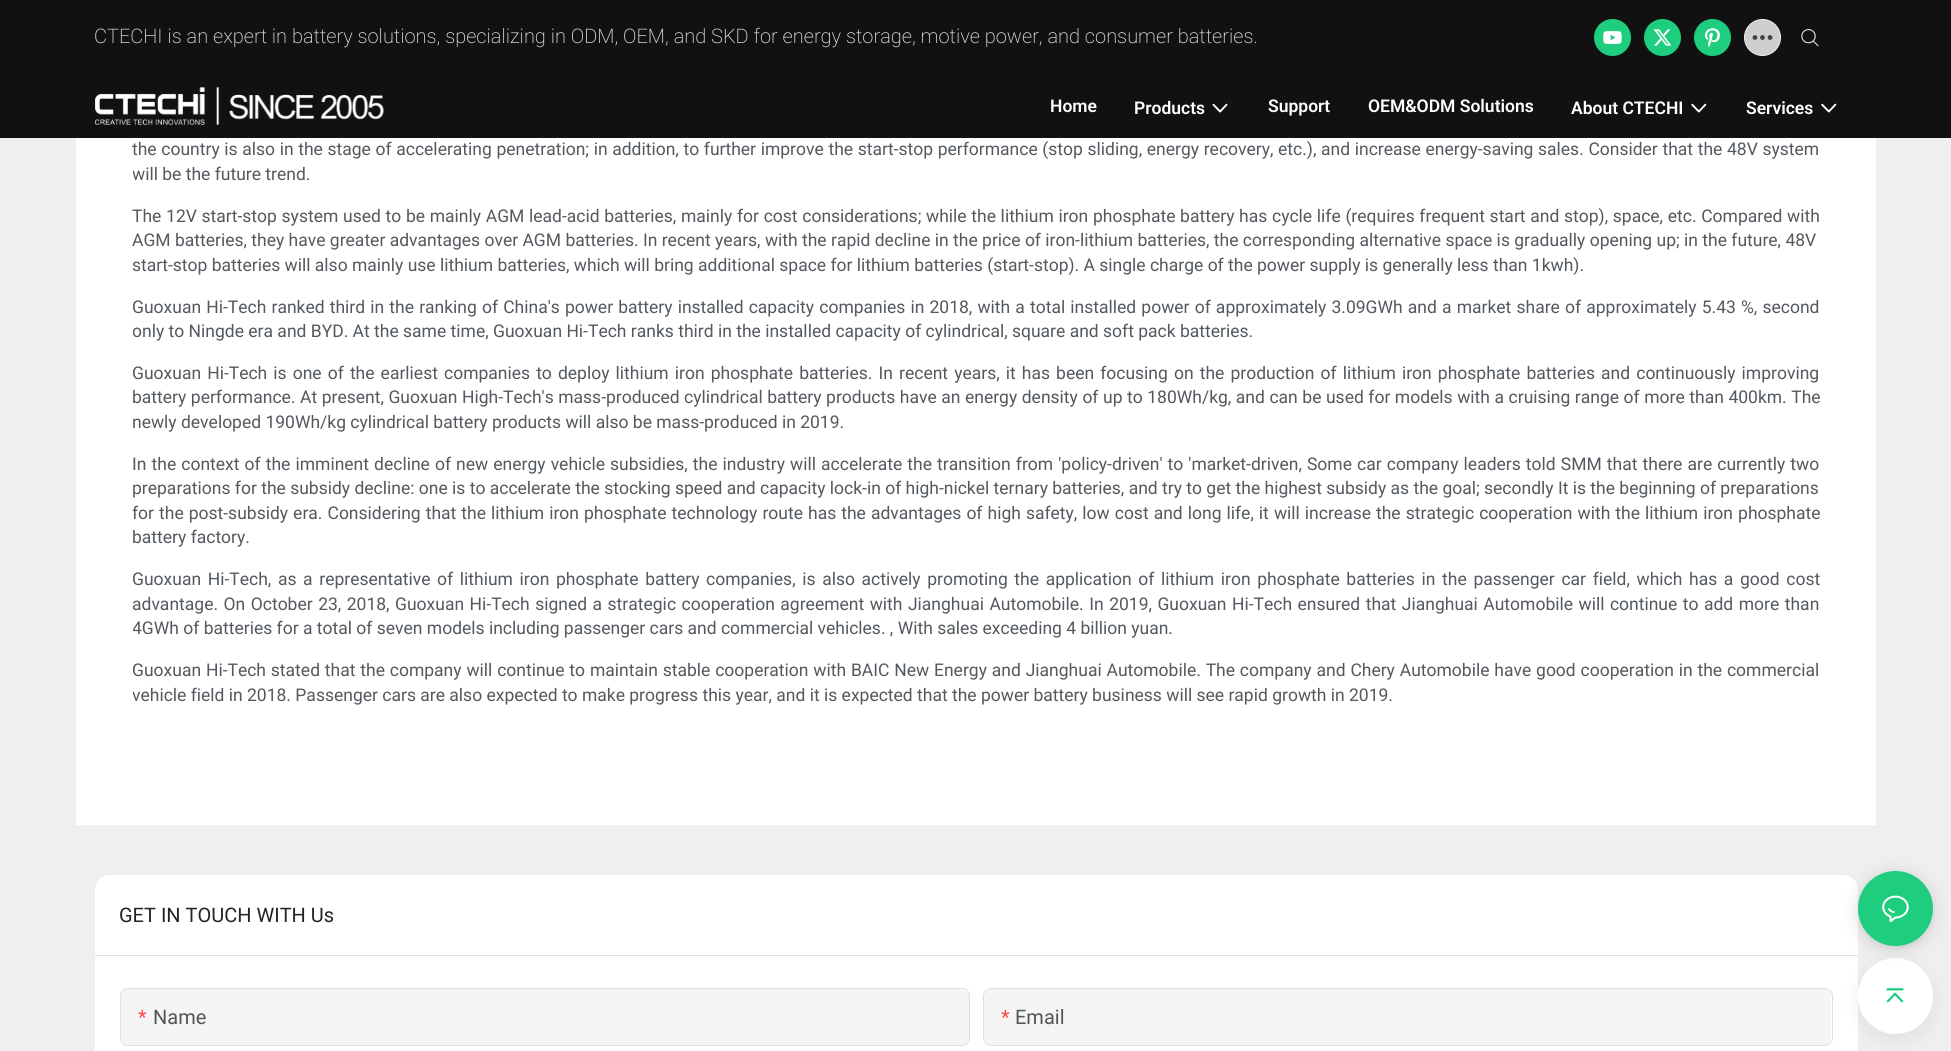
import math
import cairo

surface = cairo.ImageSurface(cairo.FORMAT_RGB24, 1951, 1051)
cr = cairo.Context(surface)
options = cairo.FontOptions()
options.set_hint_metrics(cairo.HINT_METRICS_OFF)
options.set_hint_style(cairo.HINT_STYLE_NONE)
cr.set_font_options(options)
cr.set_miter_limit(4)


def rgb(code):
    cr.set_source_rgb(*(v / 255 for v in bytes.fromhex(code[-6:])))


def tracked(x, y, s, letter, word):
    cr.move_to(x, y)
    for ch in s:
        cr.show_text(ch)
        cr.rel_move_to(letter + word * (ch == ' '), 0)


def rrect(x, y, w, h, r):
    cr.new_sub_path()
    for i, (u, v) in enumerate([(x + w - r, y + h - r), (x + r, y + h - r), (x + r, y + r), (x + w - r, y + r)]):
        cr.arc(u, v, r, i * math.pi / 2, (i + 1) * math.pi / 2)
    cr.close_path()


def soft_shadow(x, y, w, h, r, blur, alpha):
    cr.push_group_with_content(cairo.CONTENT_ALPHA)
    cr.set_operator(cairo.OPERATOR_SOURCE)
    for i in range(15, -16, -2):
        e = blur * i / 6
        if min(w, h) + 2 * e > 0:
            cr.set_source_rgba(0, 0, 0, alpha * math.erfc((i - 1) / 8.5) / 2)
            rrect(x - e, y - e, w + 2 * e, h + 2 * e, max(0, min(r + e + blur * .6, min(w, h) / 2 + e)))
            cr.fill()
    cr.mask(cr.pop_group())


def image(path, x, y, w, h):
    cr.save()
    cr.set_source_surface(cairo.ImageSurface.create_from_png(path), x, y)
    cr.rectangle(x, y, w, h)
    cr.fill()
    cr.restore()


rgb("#efefef")
cr.paint()
rgb("#111111")
cr.rectangle(0, 0, 1951, 138)
cr.fill()
rgb("#1ecd7e")
cr.arc(1612.5, 37.5, 18.5, 0, 2 * math.pi)
cr.fill()
image("img/1.png", 1603, 31, 19, 13)
cr.arc(1662.5, 37.5, 18.5, 0, 2 * math.pi)
cr.fill()
image("img/2.png", 1653, 29, 19, 17)
cr.arc(1712.5, 37.5, 18.5, 0, 2 * math.pi)
cr.fill()
image("img/3.png", 1705, 28, 15, 19)
rgb("#cfcfcf")
cr.arc(1762.5, 37.5, 18, 0, 2 * math.pi)
cr.fill_preserve()
rgb("#ebebeb")
cr.set_line_width(1)
cr.stroke()
image("img/4.png", 1752, 35, 21, 5)
image("img/5.png", 1801, 29, 18, 18)
image("img/6.png", 95, 87, 290, 38)
image("img/7.png", 1212, 103, 16, 10)
image("img/8.png", 1691, 103, 16, 10)
image("img/8.png", 1821, 103, 16, 10)
rgb("#ffffff")
cr.rectangle(76, 138, 1800, 687)
cr.fill()
rrect(95, 875, 1763, 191, 15)
cr.fill()
rgb("#dfdfe1")
cr.rectangle(95, 955, 1763, 1)
cr.fill()
rgb("#f5f5f5")
rrect(121, 989, 848, 56, 6)
cr.fill()
rrect(120.5, 988.5, 849, 57, 7.5)
rgb("#dfdfe1")
cr.stroke()
rgb("#f5f5f5")
rrect(984, 989, 847, 56, 6)
cr.fill()
rrect(983.5, 988.5, 849, 57, 7.5)
rgb("#dfdfe1")
cr.stroke()
rgb("#282f36")
soft_shadow(1858, 964, 75, 76, 37.5, 9.5, 0.08)
rgb("#ffffff")
rrect(1858, 958, 75, 76, 37.5)
cr.fill()
rgb("#000000")
soft_shadow(1858, 874, 75, 75, 37.5, 10, 0.12)
soft_shadow(1858, 873, 75, 75, 37.5, 2.5, 0.06)
rgb("#1ecd7e")
cr.arc(1895.5, 908.5, 37.5, 0, 2 * math.pi)
cr.fill()
image("img/9.png", 1882, 895, 27, 28)
image("img/10.png", 1886, 988, 18, 15)
cr.select_font_face("Roboto ExtraLight")
cr.set_font_size(20)
rgb("#e2e2e2")
cr.move_to(94, 43)
cr.show_text("CTECHI is an expert in battery solutions, specializing in ODM, OEM, and SKD for energy storage, motive power, and consumer batteries.")
cr.select_font_face("Roboto SemiBold")
cr.set_font_size(17.5)
rgb("#ffffff")
for x, y, s in [
    (1050, 112, "Home"),
    (1134, 114, "Products"),
    (1268, 112, "Support"),
    (1368, 112, "OEM&ODM Solutions"),
    (1571, 114, "About CTECHI"),
    (1746, 114, "Services"),
]:
    cr.move_to(x, y)
    cr.show_text(s)
cr.select_font_face("Roboto")
rgb("#53595e")
tracked(132, 155, "the country is also in the stage of accelerating penetration; in addition, to further improve the start-stop performance (stop sliding, energy recovery, etc.), and increase energy-saving sales. Consider that the 48V system", 0, 0.3)
cr.save()
cr.rectangle(133, 0, 1687, 725)
cr.clip()
cr.move_to(132, 180)
cr.show_text("will be the future trend.")
cr.restore()
tracked(132, 222, "The 12V start-stop system used to be mainly AGM lead-acid batteries, mainly for cost considerations; while the lithium iron phosphate battery has cycle life (requires frequent start and stop), space, etc. Compared with", 0, 0.35)
cr.move_to(132, 246)
cr.show_text("AGM batteries, they have greater advantages over AGM batteries. In recent years, with the rapid decline in the price of iron-lithium batteries, the corresponding alternative space is gradually opening up; in the future, 48V")
cr.move_to(132, 271)
cr.show_text("start-stop batteries will also mainly use lithium batteries, which will bring additional space for lithium batteries (start-stop). A single charge of the power supply is generally less than 1kwh).")
tracked(132, 313, "Guoxuan Hi-Tech ranked third in the ranking of China's power battery installed capacity companies in 2018, with a total installed power of approximately 3.09GWh and a market share of approximately 5.43 %, second", 0, 0.8)
cr.save()
cr.rectangle(133, 0, 1687, 725)
cr.clip()
cr.move_to(132, 337)
cr.show_text("only to Ningde era and BYD. At the same time, Guoxuan Hi-Tech ranks third in the installed capacity of cylindrical, square and soft pack batteries.")
cr.restore()
tracked(132, 379, "Guoxuan Hi-Tech is one of the earliest companies to deploy lithium iron phosphate batteries. In recent years, it has been focusing on the production of lithium iron phosphate batteries and continuously improving", 0, 1.75)
tracked(132, 403, "battery performance. At present, Guoxuan High-Tech's mass-produced cylindrical battery products have an energy density of up to 180Wh/kg, and can be used for models with a cruising range of more than 400km. The", 0, 0.2)
cr.move_to(132, 428)
cr.show_text("newly developed 190Wh/kg cylindrical battery products will also be mass-produced in 2019.")
tracked(132, 470, "In the context of the imminent decline of new energy vehicle subsidies, the industry will accelerate the transition from 'policy-driven' to 'market-driven, Some car company leaders told SMM that there are currently two", 0, 0.75)
cr.move_to(132, 494)
cr.show_text("preparations for the subsidy decline: one is to accelerate the stocking speed and capacity lock-in of high-nickel ternary batteries, and try to get the highest subsidy as the goal; secondly It is the beginning of preparations")
tracked(132, 519, "for the post-subsidy era. Considering that the lithium iron phosphate technology route has the advantages of high safety, low cost and long life, it will increase the strategic cooperation with the lithium iron phosphate", 0, 0.7)
cr.move_to(132, 543)
cr.show_text("battery factory.")
tracked(132, 585, "Guoxuan Hi-Tech, as a representative of lithium iron phosphate battery companies, is also actively promoting the application of lithium iron phosphate batteries in the passenger car field, which has a good cost", 0, 2.3)
tracked(132, 610, "advantage. On October 23, 2018, Guoxuan Hi-Tech signed a strategic cooperation agreement with Jianghuai Automobile. In 2019, Guoxuan Hi-Tech ensured that Jianghuai Automobile will continue to add more than", 0, 1.15)
cr.save()
cr.rectangle(133, 0, 1687, 725)
cr.clip()
cr.move_to(132, 634)
cr.show_text("4GWh of batteries for a total of seven models including passenger cars and commercial vehicles. , With sales exceeding 4 billion yuan.")
cr.restore()
tracked(132, 676, "Guoxuan Hi-Tech stated that the company will continue to maintain stable cooperation with BAIC New Energy and Jianghuai Automobile. The company and Chery Automobile have good cooperation in the commercial", 0, 0.5)
cr.save()
cr.rectangle(133, 0, 1687, 725)
cr.clip()
cr.move_to(132, 701)
cr.show_text("vehicle field in 2018. Passenger cars are also expected to make progress this year, and it is expected that the power battery business will see rapid growth in 2019.")
cr.restore()
cr.set_font_size(20)
rgb("#212529")
cr.move_to(119, 922)
cr.show_text("GET IN TOUCH WITH Us")
rgb("#fc4a4a")
cr.move_to(138, 1024)
cr.show_text("*")
rgb("#555555")
cr.move_to(153, 1024)
cr.show_text("Name")
rgb("#fc4a4a")
cr.move_to(1001, 1024)
cr.show_text("*")
rgb("#555555")
cr.move_to(1015, 1024)
cr.show_text("Email")
surface.write_to_png("page.png")
